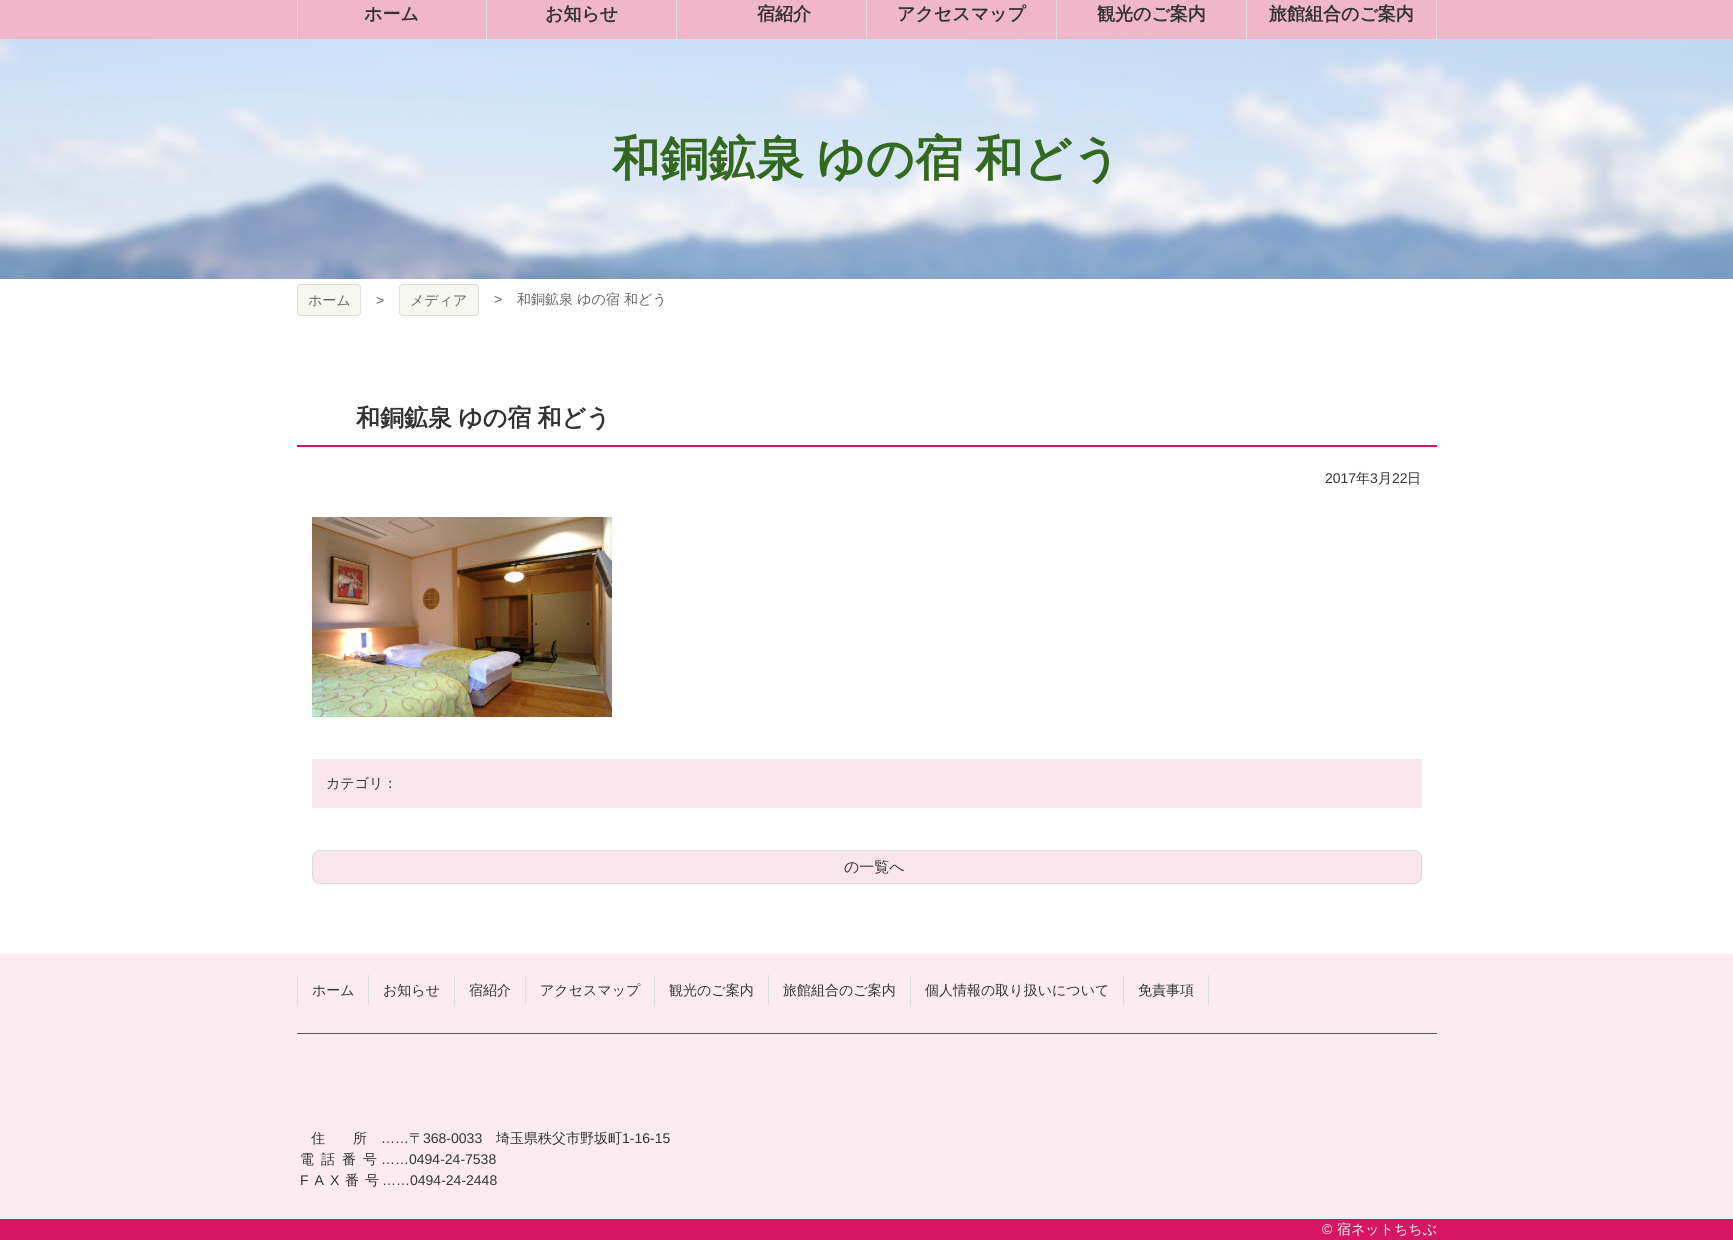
import math
import cairo

surface = cairo.ImageSurface(cairo.FORMAT_RGB24, 1733, 1240)
cr = cairo.Context(surface)
options = cairo.FontOptions()
options.set_hint_metrics(cairo.HINT_METRICS_OFF)
options.set_hint_style(cairo.HINT_STYLE_NONE)
cr.set_font_options(options)
cr.set_miter_limit(4)


def rgb(code):
    cr.set_source_rgb(*(v / 255 for v in bytes.fromhex(code[-6:])))


def tracked(x, y, s, letter, word):
    cr.move_to(x, y)
    for ch in s:
        cr.show_text(ch)
        cr.rel_move_to(letter + word * (ch == ' '), 0)


def rrect(x, y, w, h, r):
    cr.new_sub_path()
    for i, (u, v) in enumerate([(x + w - r, y + h - r), (x + r, y + h - r), (x + r, y + r), (x + w - r, y + r)]):
        cr.arc(u, v, r, i * math.pi / 2, (i + 1) * math.pi / 2)
    cr.close_path()


def image(path, x, y, w, h):
    cr.save()
    cr.set_source_surface(cairo.ImageSurface.create_from_png(path), x, y)
    cr.rectangle(x, y, w, h)
    cr.fill()
    cr.restore()


rgb("#ffffff")
cr.paint()
rgb("#f0b6ca")
cr.rectangle(0, 0, 1733, 39)
cr.fill()
image("img/1.png", 0, 39, 1733, 240)
for x, y, w, h, color in [
    (297, 0, 1, 40, "#dddddd"),
    (486, 0, 1, 40, "#dddddd"),
    (676, 0, 1, 40, "#dddddd"),
    (866, 0, 1, 40, "#dddddd"),
    (1056, 0, 1, 40, "#dddddd"),
    (1436, 0, 1, 40, "#dddddd"),
    (1246, 0, 1, 40, "#dddddd"),
]:
    rgb(color)
    cr.rectangle(x, y, w, h)
    cr.fill()
rgb("#f6f7ef")
rrect(297.5, 284.5, 63, 31, 3.5)
cr.fill_preserve()
rgb("#dddddd")
cr.set_line_width(1)
cr.stroke()
rgb("#f6f7ef")
rrect(399.5, 284.5, 79, 31, 3.5)
cr.fill_preserve()
rgb("#dddddd")
cr.stroke()
rgb("#d61660")
cr.rectangle(297, 445, 1140, 2)
cr.fill()
image("img/2.png", 312, 517, 300, 200)
rgb("#f9e6ec")
cr.rectangle(312, 759, 1110, 49)
cr.fill()
rrect(312.5, 850.5, 1109, 33, 7.5)
cr.fill_preserve()
rgb("#dddddd")
cr.stroke()
for x, y, w, h, color in [
    (0, 954, 1733, 265, "#fcecf1"),
    (297, 1033, 1140, 1, "#555555"),
    (297, 975, 1, 30, "#dddddd"),
    (368, 975, 1, 30, "#dddddd"),
    (454, 975, 1, 30, "#dddddd"),
    (525, 975, 1, 30, "#dddddd"),
    (654, 975, 1, 30, "#dddddd"),
    (768, 975, 1, 30, "#dddddd"),
    (910, 975, 1, 30, "#dddddd"),
    (1208, 975, 1, 30, "#dddddd"),
    (1123, 975, 1, 30, "#dddddd"),
    (0, 1219, 1733, 21, "#d61660"),
]:
    rgb(color)
    cr.rectangle(x, y, w, h)
    cr.fill()
cr.select_font_face("WenQuanYi Zen Hei", cairo.FONT_SLANT_NORMAL, cairo.FONT_WEIGHT_BOLD)
cr.set_font_size(18)
rgb("#333333")
for x, y, s in [
    (364, 20, "ホーム"),
    (545, 20, "お知らせ"),
    (757, 20, "宿紹介"),
    (897, 20, "アクセスマップ"),
    (1097, 20, "観光のご案内"),
    (1269, 20, "旅館組合のご案内"),
]:
    cr.move_to(x, y)
    cr.show_text(s)
cr.set_font_size(48)
rgb("#33691e")
tracked(612, 175, "和銅鉱泉 ゆの宿 和どう", 0, -2)
cr.select_font_face("WenQuanYi Zen Hei Medium")
cr.set_font_size(14)
rgb("#666666")
cr.move_to(308, 305)
cr.show_text("ホーム")
cr.select_font_face("Liberation Sans")
cr.move_to(376, 305)
cr.show_text(">")
cr.select_font_face("WenQuanYi Zen Hei Medium")
cr.move_to(410, 305)
cr.show_text("メディア")
cr.select_font_face("Liberation Sans")
cr.move_to(494, 304)
cr.show_text(">")
cr.select_font_face("WenQuanYi Zen Hei Medium")
cr.move_to(517, 304)
cr.show_text("和銅鉱泉 ゆの宿 和どう")
cr.select_font_face("WenQuanYi Zen Hei", cairo.FONT_SLANT_NORMAL, cairo.FONT_WEIGHT_BOLD)
cr.set_font_size(24)
rgb("#333333")
tracked(356, 426, "和銅鉱泉 ゆの宿 和どう", 0, -1)
cr.select_font_face("Liberation Sans")
cr.set_font_size(14)
cr.move_to(1325, 483)
cr.show_text("2017")
cr.select_font_face("WenQuanYi Zen Hei Medium")
cr.move_to(1356, 483)
cr.show_text("年")
cr.select_font_face("Liberation Sans")
cr.move_to(1370, 483)
cr.show_text("3")
cr.select_font_face("WenQuanYi Zen Hei Medium")
cr.move_to(1378, 483)
cr.show_text("月")
cr.select_font_face("Liberation Sans")
cr.move_to(1392, 483)
cr.show_text("22")
cr.select_font_face("WenQuanYi Zen Hei Medium")
cr.move_to(1407, 483)
cr.show_text("日")
cr.move_to(326, 788)
cr.show_text("カテゴリ：")
cr.set_font_size(15)
cr.move_to(844, 872)
cr.show_text("の一覧へ")
cr.set_font_size(14)
for x, y, s in [
    (312, 995, "ホーム"),
    (383, 995, "お知らせ"),
    (469, 995, "宿紹介"),
    (540, 995, "アクセスマップ"),
    (669, 995, "観光のご案内"),
    (783, 995, "旅館組合のご案内"),
    (925, 995, "個人情報の取り扱いについて"),
    (1138, 995, "免責事項"),
]:
    cr.move_to(x, y)
    cr.show_text(s)
tracked(311, 1143, "住所", 28, 0)
cr.select_font_face("Liberation Sans")
cr.move_to(381, 1143)
cr.show_text("……")
cr.select_font_face("WenQuanYi Zen Hei Medium")
cr.move_to(409, 1143)
cr.show_text("〒")
cr.select_font_face("Liberation Sans")
cr.move_to(423, 1143)
cr.show_text("368-0033")
cr.select_font_face("WenQuanYi Zen Hei Medium")
cr.move_to(496, 1143)
cr.show_text("埼玉県秩父市野坂町")
cr.select_font_face("Liberation Sans")
cr.move_to(622, 1143)
cr.show_text("1-16-15")
cr.select_font_face("WenQuanYi Zen Hei Medium")
tracked(300, 1164, "電話番号", 7, 0)
cr.select_font_face("Liberation Sans")
cr.move_to(381, 1164)
cr.show_text("……0494-24-7538")
tracked(300, 1185, "FAX", 6, 0)
cr.select_font_face("WenQuanYi Zen Hei Medium")
tracked(345, 1185, "番号", 6, 0)
cr.select_font_face("Liberation Sans")
cr.move_to(382, 1185)
cr.show_text("……0494-24-2448")
rgb("#ffffff")
cr.move_to(1322, 1234)
cr.show_text("©")
cr.select_font_face("WenQuanYi Zen Hei Medium")
cr.move_to(1337, 1234)
cr.show_text("宿ネットちちぶ")
surface.write_to_png("page.png")
